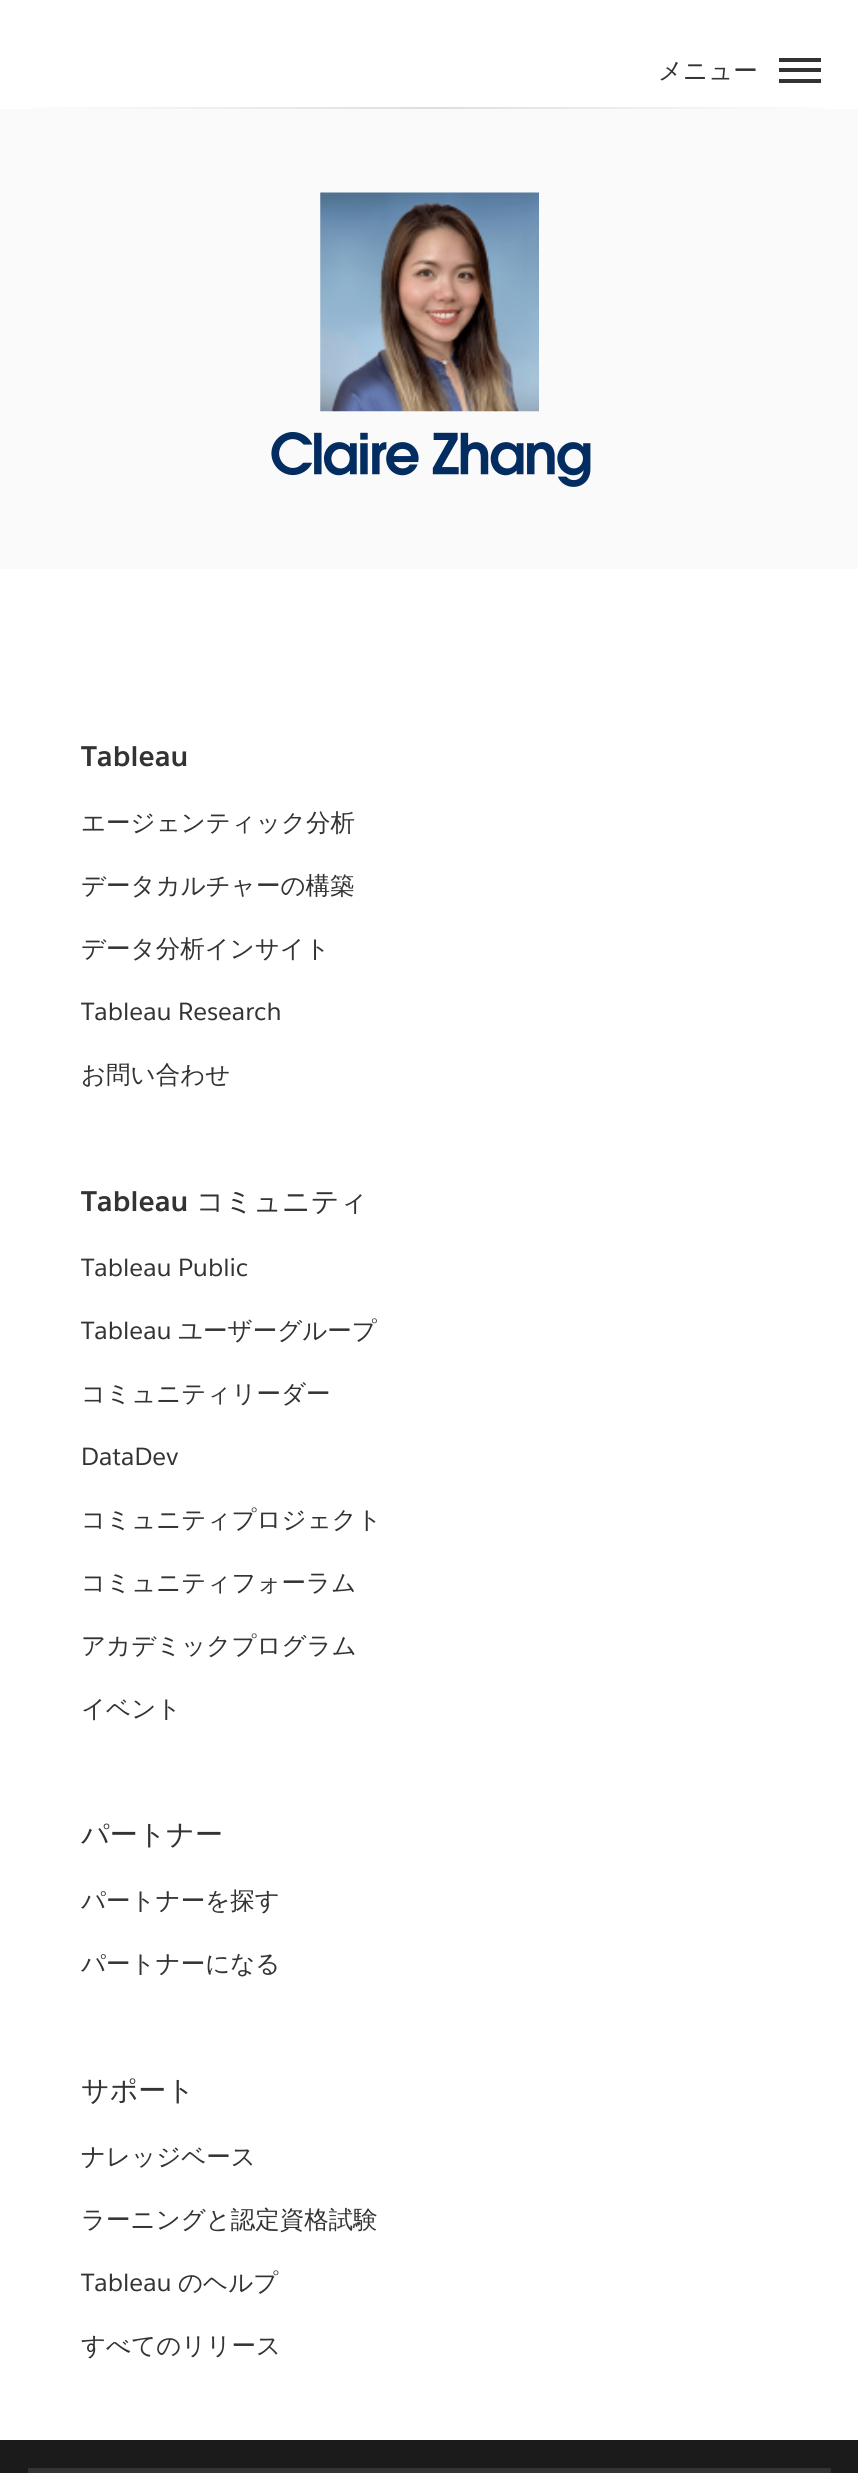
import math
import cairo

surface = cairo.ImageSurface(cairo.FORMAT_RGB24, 858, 2473)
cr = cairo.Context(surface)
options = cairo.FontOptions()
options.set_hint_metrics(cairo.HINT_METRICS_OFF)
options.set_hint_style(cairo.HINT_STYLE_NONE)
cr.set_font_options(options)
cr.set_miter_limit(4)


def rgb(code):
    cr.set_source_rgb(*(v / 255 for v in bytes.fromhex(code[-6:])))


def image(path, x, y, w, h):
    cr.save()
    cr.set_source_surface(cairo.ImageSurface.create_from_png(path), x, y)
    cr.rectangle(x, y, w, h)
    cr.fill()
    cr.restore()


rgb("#ffffff")
cr.paint()
for x, y, w, h, color in [
    (779, 68, 42, 4, "#333333"),
    (779, 58, 42, 4, "#333333"),
    (779, 79, 42, 4, "#333333"),
]:
    rgb(color)
    cr.rectangle(x, y, w, h)
    cr.fill()
gradient = cairo.LinearGradient(0, 108, 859, 108)
gradient.add_color_stop_rgba(0, 1, 1, 1, 1)
gradient.add_color_stop_rgba(0.5, 0.871, 0.871, 0.871, 1)
gradient.add_color_stop_rgba(1, 1, 1, 1, 1)
cr.set_source(gradient)
cr.rectangle(33, 107, 793, 2)
cr.fill()
rgb("#fafafa")
cr.rectangle(0, 109, 858, 460)
cr.fill()
image("img/1.png", 320, 192, 219, 220)
image("img/2.png", 271, 432, 320, 55)
rgb("#1b1b1b")
cr.rectangle(0, 2440, 858, 33)
cr.fill()
rgb("#333333")
cr.rectangle(28, 2468, 803, 5)
cr.fill()
cr.select_font_face("WenQuanYi Zen Hei Medium")
cr.set_font_size(24.5)
cr.move_to(658, 79)
cr.show_text("メニュー")
cr.select_font_face("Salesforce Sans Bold", cairo.FONT_SLANT_NORMAL, cairo.FONT_WEIGHT_BOLD)
cr.set_font_size(28)
cr.move_to(81, 766)
cr.show_text("Tableau")
cr.select_font_face("WenQuanYi Zen Hei Medium")
cr.set_font_size(24.5)
for x, y, s in [
    (81, 831, "エージェンティック分析"),
    (81, 894, "データカルチャーの構築"),
    (81, 957, "データ分析インサイト"),
]:
    cr.move_to(x, y)
    cr.show_text(s)
cr.select_font_face("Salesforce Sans")
cr.move_to(81, 1020)
cr.show_text("Tableau Research")
cr.select_font_face("WenQuanYi Zen Hei Medium")
cr.move_to(81, 1083)
cr.show_text("お問い合わせ")
cr.select_font_face("Salesforce Sans Bold", cairo.FONT_SLANT_NORMAL, cairo.FONT_WEIGHT_BOLD)
cr.set_font_size(28)
cr.move_to(81, 1211)
cr.show_text("Tableau")
cr.select_font_face("WenQuanYi Zen Hei Medium")
cr.move_to(196, 1211)
cr.show_text("コミュニティ")
cr.select_font_face("Salesforce Sans")
cr.set_font_size(24.5)
cr.move_to(81, 1276)
cr.show_text("Tableau Public")
cr.move_to(81, 1339)
cr.show_text("Tableau")
cr.select_font_face("WenQuanYi Zen Hei Medium")
cr.move_to(178, 1339)
cr.show_text("ユーザーグループ")
cr.move_to(81, 1402)
cr.show_text("コミュニティリーダー")
cr.select_font_face("Salesforce Sans")
cr.move_to(81, 1465)
cr.show_text("DataDev")
cr.select_font_face("WenQuanYi Zen Hei Medium")
for x, y, s in [
    (81, 1528, "コミュニティプロジェクト"),
    (81, 1591, "コミュニティフォーラム"),
    (81, 1654, "アカデミックプログラム"),
    (81, 1717, "イベント"),
]:
    cr.move_to(x, y)
    cr.show_text(s)
cr.set_font_size(28)
cr.move_to(81, 1844)
cr.show_text("パートナー")
cr.set_font_size(24.5)
cr.move_to(81, 1909)
cr.show_text("パートナーを探す")
cr.move_to(81, 1972)
cr.show_text("パートナーになる")
cr.set_font_size(28)
cr.move_to(81, 2100)
cr.show_text("サポート")
cr.set_font_size(24.5)
cr.move_to(81, 2165)
cr.show_text("ナレッジベース")
cr.move_to(81, 2228)
cr.show_text("ラーニングと認定資格試験")
cr.select_font_face("Salesforce Sans")
cr.move_to(81, 2291)
cr.show_text("Tableau")
cr.select_font_face("WenQuanYi Zen Hei Medium")
cr.move_to(178, 2291)
cr.show_text("のヘルプ")
cr.move_to(81, 2354)
cr.show_text("すべてのリリース")
surface.write_to_png("page.png")
